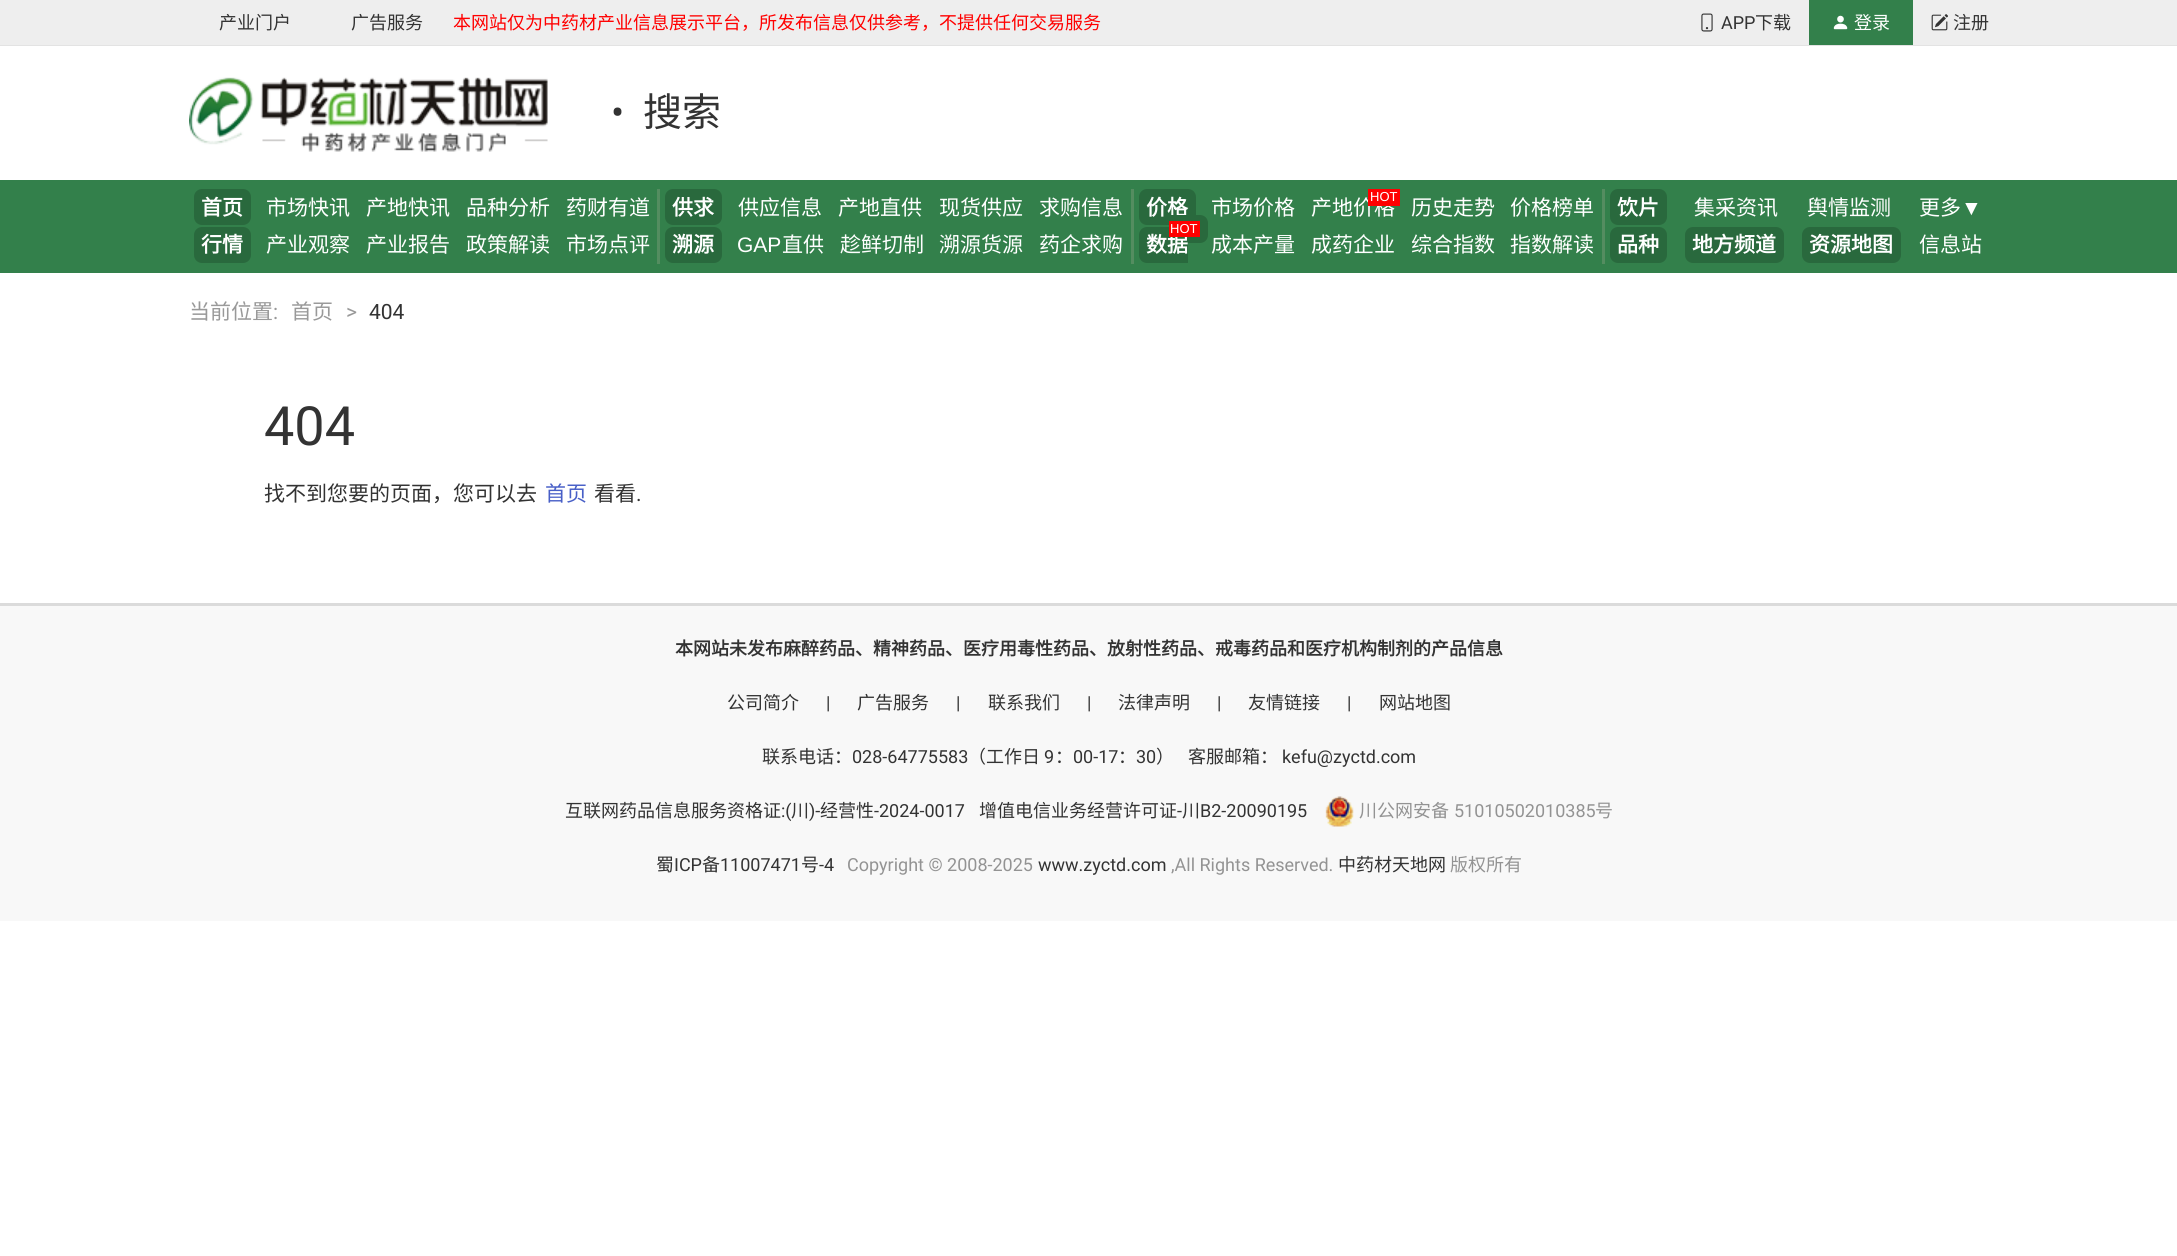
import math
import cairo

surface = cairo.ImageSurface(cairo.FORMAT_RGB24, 2177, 1256)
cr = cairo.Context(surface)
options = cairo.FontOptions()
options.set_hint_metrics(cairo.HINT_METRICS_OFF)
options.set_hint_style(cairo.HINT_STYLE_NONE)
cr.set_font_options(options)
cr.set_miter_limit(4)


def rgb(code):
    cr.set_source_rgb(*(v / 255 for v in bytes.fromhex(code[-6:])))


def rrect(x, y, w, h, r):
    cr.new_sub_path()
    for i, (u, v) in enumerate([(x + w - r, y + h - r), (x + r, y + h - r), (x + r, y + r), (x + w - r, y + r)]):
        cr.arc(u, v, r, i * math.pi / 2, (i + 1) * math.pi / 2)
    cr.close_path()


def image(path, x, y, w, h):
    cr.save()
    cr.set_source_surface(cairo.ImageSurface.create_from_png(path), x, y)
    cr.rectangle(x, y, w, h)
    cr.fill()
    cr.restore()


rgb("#ffffff")
cr.paint()
rgb("#eeeeee")
cr.rectangle(0, 0, 2177, 45)
cr.fill()
image("img/1.png", 1701, 13, 12, 19)
rgb("#33804b")
cr.rectangle(1809, 0, 104, 45)
cr.fill()
image("img/2.png", 1833, 15, 15, 15)
image("img/3.png", 1931, 14, 17, 17)
rgb("#e3e3e3")
cr.rectangle(0, 45, 2177, 1)
cr.fill()
image("img/4.png", 189, 77, 359, 75)
rgb("#33804b")
cr.rectangle(0, 180, 2177, 93)
cr.fill()
rgb("#548d60")
cr.rectangle(657, 189, 3, 75)
cr.fill()
rgb("#29693d")
rrect(194, 189, 57, 36, 8)
cr.fill()
rrect(194, 227, 57, 36, 8)
cr.fill()
rgb("#548d60")
cr.rectangle(1131, 189, 3, 75)
cr.fill()
rgb("#29693d")
rrect(665, 189, 57, 36, 8)
cr.fill()
rrect(665, 227, 57, 36, 8)
cr.fill()
rgb("#548d60")
cr.rectangle(1602, 189, 3, 75)
cr.fill()
rgb("#29693d")
rrect(1139, 189, 57, 36, 8)
cr.fill()
cr.new_path()
cr.move_to(1147, 227)
cr.line_to(1188, 227)
cr.line_to(1188, 263)
cr.line_to(1147, 263)
cr.curve_to(1142.5, 263, 1139, 259.5, 1139, 255)
cr.line_to(1139, 235)
cr.curve_to(1139, 230.5, 1142.5, 227, 1147, 227)
cr.close_path()
cr.fill()
rrect(1610, 189, 57, 36, 8)
cr.fill()
rrect(1610, 227, 57, 36, 8)
cr.fill()
rrect(1685, 227, 99, 36, 8)
cr.fill()
rrect(1802, 227, 99, 36, 8)
cr.fill()
rgb("#f8f8f8")
cr.rectangle(0, 606, 2177, 315)
cr.fill()
rgb("#dbdbdb")
cr.rectangle(0, 603, 2177, 3)
cr.fill()
image("img/5.png", 1325, 796, 29, 31)
cr.select_font_face("Noto Sans CJK SC")
cr.set_font_size(18)
rgb("#333333")
cr.move_to(219, 29)
cr.show_text("产业门户")
cr.move_to(351, 29)
cr.show_text("广告服务")
rgb("#ff0000")
cr.move_to(453, 29)
cr.show_text("本网站仅为中药材产业信息展示平台，所发布信息仅供参考，不提供任何交易服务")
cr.select_font_face("Roboto")
rgb("#333333")
cr.move_to(1721, 29)
cr.show_text("APP")
cr.select_font_face("Noto Sans CJK SC")
cr.move_to(1755, 29)
cr.show_text("下载")
rgb("#ffffff")
cr.move_to(1854, 29)
cr.show_text("登录")
rgb("#333333")
cr.move_to(1953, 29)
cr.show_text("注册")
cr.select_font_face("Roboto")
cr.set_font_size(39)
cr.move_to(611, 126)
cr.show_text("•")
cr.select_font_face("Noto Sans CJK SC")
cr.move_to(643, 126)
cr.show_text("搜索")
cr.select_font_face("Noto Sans CJK SC", cairo.FONT_SLANT_NORMAL, cairo.FONT_WEIGHT_BOLD)
cr.set_font_size(21)
rgb("#ffffff")
cr.move_to(201, 215)
cr.show_text("首页")
cr.select_font_face("Noto Sans CJK SC")
for x, y, s in [
    (266, 215, "市场快讯"),
    (366, 215, "产地快讯"),
    (466, 215, "品种分析"),
    (566, 215, "药财有道"),
]:
    cr.move_to(x, y)
    cr.show_text(s)
cr.select_font_face("Noto Sans CJK SC", cairo.FONT_SLANT_NORMAL, cairo.FONT_WEIGHT_BOLD)
cr.move_to(201, 252)
cr.show_text("行情")
cr.select_font_face("Noto Sans CJK SC")
for x, y, s in [
    (266, 252, "产业观察"),
    (366, 252, "产业报告"),
    (466, 252, "政策解读"),
    (566, 252, "市场点评"),
]:
    cr.move_to(x, y)
    cr.show_text(s)
cr.select_font_face("Noto Sans CJK SC", cairo.FONT_SLANT_NORMAL, cairo.FONT_WEIGHT_BOLD)
cr.move_to(672, 215)
cr.show_text("供求")
cr.select_font_face("Noto Sans CJK SC")
for x, y, s in [
    (738, 215, "供应信息"),
    (838, 215, "产地直供"),
    (939, 215, "现货供应"),
    (1039, 215, "求购信息"),
]:
    cr.move_to(x, y)
    cr.show_text(s)
cr.select_font_face("Noto Sans CJK SC", cairo.FONT_SLANT_NORMAL, cairo.FONT_WEIGHT_BOLD)
cr.move_to(672, 252)
cr.show_text("溯源")
cr.select_font_face("Liberation Sans")
cr.move_to(737, 252)
cr.show_text("GAP")
cr.select_font_face("Noto Sans CJK SC")
for x, y, s in [
    (782, 252, "直供"),
    (840, 252, "趁鲜切制"),
    (939, 252, "溯源货源"),
    (1039, 252, "药企求购"),
]:
    cr.move_to(x, y)
    cr.show_text(s)
cr.select_font_face("Noto Sans CJK SC", cairo.FONT_SLANT_NORMAL, cairo.FONT_WEIGHT_BOLD)
cr.move_to(1146, 215)
cr.show_text("价格")
cr.select_font_face("Noto Sans CJK SC")
cr.move_to(1211, 215)
cr.show_text("市场价格")
cr.move_to(1311, 215)
cr.show_text("产地价格")
rgb("#ff0000")
cr.rectangle(1368, 189, 32, 17)
cr.fill()
cr.select_font_face("Liberation Sans")
cr.set_font_size(13)
rgb("#ffffff")
cr.move_to(1370, 201)
cr.show_text("HOT")
cr.select_font_face("Noto Sans CJK SC")
cr.set_font_size(21)
cr.move_to(1411, 215)
cr.show_text("历史走势")
cr.move_to(1510, 215)
cr.show_text("价格榜单")
rgb("#29693d")
cr.new_path()
cr.move_to(1169, 215)
cr.line_to(1200, 215)
cr.curve_to(1204.5, 215, 1208, 218.5, 1208, 223)
cr.line_to(1208, 235)
cr.curve_to(1208, 239.5, 1204.5, 243, 1200, 243)
cr.line_to(1169, 243)
cr.close_path()
cr.fill()
cr.select_font_face("Noto Sans CJK SC", cairo.FONT_SLANT_NORMAL, cairo.FONT_WEIGHT_BOLD)
rgb("#ffffff")
cr.move_to(1146, 252)
cr.show_text("数据")
rgb("#ff0000")
cr.rectangle(1169, 221, 31, 16)
cr.fill()
cr.select_font_face("Liberation Sans")
cr.set_font_size(13)
rgb("#ffffff")
cr.move_to(1170, 233)
cr.show_text("HOT")
cr.select_font_face("Noto Sans CJK SC")
cr.set_font_size(21)
for x, y, s in [
    (1211, 252, "成本产量"),
    (1311, 252, "成药企业"),
    (1411, 252, "综合指数"),
    (1510, 252, "指数解读"),
]:
    cr.move_to(x, y)
    cr.show_text(s)
cr.select_font_face("Noto Sans CJK SC", cairo.FONT_SLANT_NORMAL, cairo.FONT_WEIGHT_BOLD)
cr.move_to(1617, 215)
cr.show_text("饮片")
cr.select_font_face("Noto Sans CJK SC")
for x, y, s in [
    (1694, 215, "集采资讯"),
    (1807, 215, "舆情监测"),
    (1919, 215, "更多"),
]:
    cr.move_to(x, y)
    cr.show_text(s)
cr.select_font_face("Liberation Sans")
cr.move_to(1961, 215)
cr.show_text("▼")
cr.select_font_face("Noto Sans CJK SC", cairo.FONT_SLANT_NORMAL, cairo.FONT_WEIGHT_BOLD)
for x, y, s in [
    (1617, 252, "品种"),
    (1692, 252, "地方频道"),
    (1809, 252, "资源地图"),
]:
    cr.move_to(x, y)
    cr.show_text(s)
cr.select_font_face("Noto Sans CJK SC")
cr.move_to(1919, 252)
cr.show_text("信息站")
rgb("#999999")
cr.move_to(189, 319)
cr.show_text("当前位置")
cr.select_font_face("Roboto")
cr.move_to(273, 319)
cr.show_text(":")
cr.select_font_face("Noto Sans CJK SC")
cr.move_to(291, 319)
cr.show_text("首页")
cr.select_font_face("Roboto")
cr.move_to(346, 319)
cr.show_text(">")
rgb("#333333")
cr.move_to(369, 319)
cr.show_text("404")
cr.set_font_size(54)
cr.move_to(264, 445)
cr.show_text("404")
cr.select_font_face("Noto Sans CJK SC")
cr.set_font_size(21)
cr.move_to(264, 501)
cr.show_text("找不到您要的页面，您可以去")
rgb("#485fc7")
cr.move_to(545, 501)
cr.show_text("首页")
rgb("#333333")
cr.move_to(594, 501)
cr.show_text("看看")
cr.select_font_face("Roboto")
cr.move_to(636, 501)
cr.show_text(".")
cr.select_font_face("Noto Sans CJK SC", cairo.FONT_SLANT_NORMAL, cairo.FONT_WEIGHT_BOLD)
cr.set_font_size(18)
cr.move_to(675, 655)
cr.show_text("本网站未发布麻醉药品、精神药品、医疗用毒性药品、放射性药品、戒毒药品和医疗机构制剂的产品信息")
cr.select_font_face("Noto Sans CJK SC")
cr.move_to(727, 709)
cr.show_text("公司简介")
cr.select_font_face("Roboto")
cr.move_to(826, 709)
cr.show_text("|")
cr.select_font_face("Noto Sans CJK SC")
cr.move_to(857, 709)
cr.show_text("广告服务")
cr.select_font_face("Roboto")
cr.move_to(956, 709)
cr.show_text("|")
cr.select_font_face("Noto Sans CJK SC")
cr.move_to(988, 709)
cr.show_text("联系我们")
cr.select_font_face("Roboto")
cr.move_to(1087, 709)
cr.show_text("|")
cr.select_font_face("Noto Sans CJK SC")
cr.move_to(1118, 709)
cr.show_text("法律声明")
cr.select_font_face("Roboto")
cr.move_to(1217, 709)
cr.show_text("|")
cr.select_font_face("Noto Sans CJK SC")
cr.move_to(1248, 709)
cr.show_text("友情链接")
cr.select_font_face("Roboto")
cr.move_to(1347, 709)
cr.show_text("|")
cr.select_font_face("Noto Sans CJK SC")
cr.move_to(1379, 709)
cr.show_text("网站地图")
cr.move_to(762, 763)
cr.show_text("联系电话：")
cr.select_font_face("Roboto")
cr.move_to(852, 763)
cr.show_text("028-64775583")
cr.select_font_face("Noto Sans CJK SC")
cr.move_to(968, 763)
cr.show_text("（工作日")
cr.select_font_face("Roboto")
cr.move_to(1044, 763)
cr.show_text("9")
cr.select_font_face("Noto Sans CJK SC")
cr.move_to(1055, 763)
cr.show_text("：")
cr.select_font_face("Roboto")
cr.move_to(1073, 763)
cr.show_text("00-17")
cr.select_font_face("Noto Sans CJK SC")
cr.move_to(1118, 763)
cr.show_text("：")
cr.select_font_face("Roboto")
cr.move_to(1136, 763)
cr.show_text("30")
cr.select_font_face("Noto Sans CJK SC")
cr.move_to(1156, 763)
cr.show_text("）")
cr.move_to(1188, 763)
cr.show_text("客服邮箱：")
cr.select_font_face("Roboto")
cr.move_to(1282, 763)
cr.show_text("kefu@zyctd.com")
cr.select_font_face("Noto Sans CJK SC")
cr.move_to(565, 817)
cr.show_text("互联网药品信息服务资格证")
cr.select_font_face("Roboto")
cr.move_to(781, 817)
cr.show_text(":(")
cr.select_font_face("Noto Sans CJK SC")
cr.move_to(791, 817)
cr.show_text("川")
cr.select_font_face("Roboto")
cr.move_to(809, 817)
cr.show_text(")-")
cr.select_font_face("Noto Sans CJK SC")
cr.move_to(820, 817)
cr.show_text("经营性")
cr.select_font_face("Roboto")
cr.move_to(874, 817)
cr.show_text("-2024-0017")
cr.select_font_face("Noto Sans CJK SC")
cr.move_to(979, 817)
cr.show_text("增值电信业务经营许可证")
cr.select_font_face("Roboto")
cr.move_to(1177, 817)
cr.show_text("-")
cr.select_font_face("Noto Sans CJK SC")
cr.move_to(1182, 817)
cr.show_text("川")
cr.select_font_face("Roboto")
cr.move_to(1200, 817)
cr.show_text("B2-20090195")
cr.select_font_face("Noto Sans CJK SC")
rgb("#939393")
cr.move_to(1359, 817)
cr.show_text("川公网安备")
cr.select_font_face("Roboto")
cr.move_to(1454, 817)
cr.show_text("51010502010385")
cr.select_font_face("Noto Sans CJK SC")
cr.move_to(1595, 817)
cr.show_text("号")
rgb("#333333")
cr.move_to(656, 871)
cr.show_text("蜀")
cr.select_font_face("Roboto")
cr.move_to(674, 871)
cr.show_text("ICP")
cr.select_font_face("Noto Sans CJK SC")
cr.move_to(702, 871)
cr.show_text("备")
cr.select_font_face("Roboto")
cr.move_to(720, 871)
cr.show_text("11007471")
cr.select_font_face("Noto Sans CJK SC")
cr.move_to(801, 871)
cr.show_text("号")
cr.select_font_face("Roboto")
cr.move_to(819, 871)
cr.show_text("-4")
rgb("#939393")
cr.move_to(847, 871)
cr.show_text("Copyright © 2008-2025")
rgb("#333333")
cr.move_to(1038, 871)
cr.show_text("www.zyctd.com")
rgb("#939393")
cr.move_to(1171, 871)
cr.show_text(",All Rights Reserved.")
cr.select_font_face("Noto Sans CJK SC")
rgb("#333333")
cr.move_to(1338, 871)
cr.show_text("中药材天地网")
rgb("#939393")
cr.move_to(1450, 871)
cr.show_text("版权所有")
surface.write_to_png("page.png")
